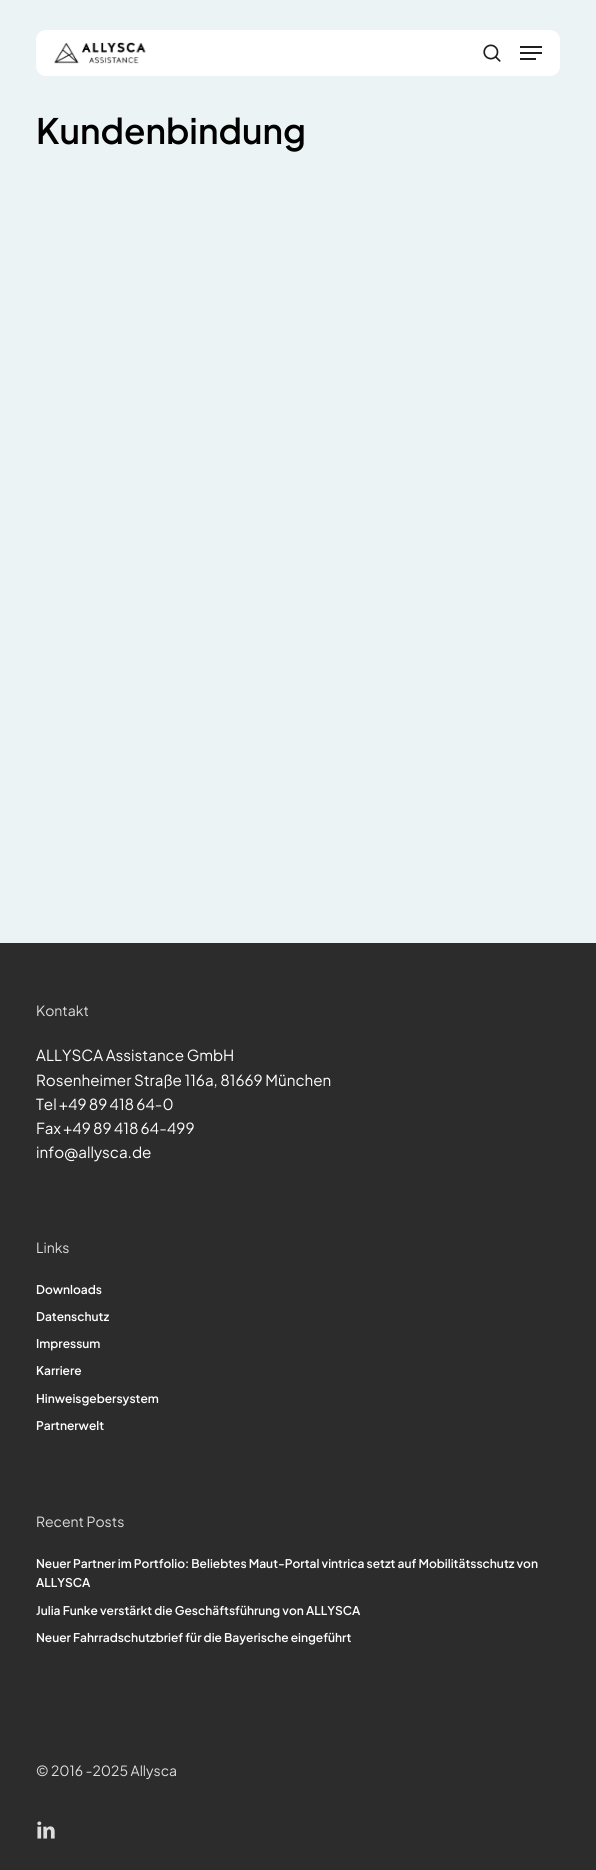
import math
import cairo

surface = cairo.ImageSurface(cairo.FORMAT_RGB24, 596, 1870)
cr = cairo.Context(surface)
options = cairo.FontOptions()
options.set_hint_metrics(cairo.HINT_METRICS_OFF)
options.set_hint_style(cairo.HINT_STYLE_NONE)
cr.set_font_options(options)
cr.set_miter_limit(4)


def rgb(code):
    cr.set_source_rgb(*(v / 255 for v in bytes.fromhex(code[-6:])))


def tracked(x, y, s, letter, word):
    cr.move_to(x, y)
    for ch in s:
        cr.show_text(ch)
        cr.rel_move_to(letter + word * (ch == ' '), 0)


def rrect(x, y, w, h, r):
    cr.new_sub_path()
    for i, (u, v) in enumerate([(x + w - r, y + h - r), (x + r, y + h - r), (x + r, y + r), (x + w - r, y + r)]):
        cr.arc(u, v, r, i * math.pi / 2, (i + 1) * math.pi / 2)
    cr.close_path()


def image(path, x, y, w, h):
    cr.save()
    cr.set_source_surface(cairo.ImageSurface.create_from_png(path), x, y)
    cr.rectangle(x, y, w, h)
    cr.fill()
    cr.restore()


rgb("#ebf3f4")
cr.paint()
rgb("#ffffff")
rrect(36, 30, 524, 46, 10)
cr.fill()
image("img/1.png", 54, 42, 92, 22)
image("img/2.png", 483, 44, 18, 18)
for x, y, w, h, color in [
    (520, 46, 22, 2, "#1e1e1e"),
    (520, 58, 16, 2, "#1e1e1e"),
    (520, 52, 22, 2, "#1e1e1e"),
    (0, 943, 596, 927, "#2c2c2c"),
]:
    rgb(color)
    cr.rectangle(x, y, w, h)
    cr.fill()
image("img/3.png", 37, 1821, 18, 18)
cr.select_font_face("Plus Jakarta Sans SemiBold")
cr.set_font_size(35)
rgb("#000000")
cr.move_to(36, 144)
cr.show_text("Kundenbindung")
cr.select_font_face("Plus Jakarta Sans")
cr.set_font_size(14)
rgb("#dddddd")
cr.move_to(36, 1016)
cr.show_text("Kontakt")
cr.set_font_size(15.2)
rgb("#ffffff")
cr.move_to(36, 1061)
cr.show_text("ALLYSCA Assistance GmbH")
cr.move_to(36, 1086)
cr.show_text("Rosenheimer Straße 116a, 81669 München")
tracked(36, 1110, "Tel +49 89 418 64-0", 0, -0.5)
tracked(36, 1134, "Fax +49 89 418 64-499", 0, -0.5)
cr.move_to(36, 1158)
cr.show_text("info@allysca.de")
cr.set_font_size(14)
rgb("#dddddd")
cr.move_to(36, 1253)
cr.show_text("Links")
cr.select_font_face("Plus Jakarta Sans SemiBold")
cr.set_font_size(12)
rgb("#ffffff")
for x, y, s in [
    (36, 1294, "Downloads"),
    (36, 1321, "Datenschutz"),
    (36, 1348, "Impressum"),
    (36, 1375, "Karriere"),
    (36, 1403, "Hinweisgebersystem"),
    (36, 1430, "Partnerwelt"),
]:
    cr.move_to(x, y)
    cr.show_text(s)
cr.select_font_face("Plus Jakarta Sans")
cr.set_font_size(14)
rgb("#dddddd")
cr.move_to(36, 1527)
cr.show_text("Recent Posts")
cr.select_font_face("Plus Jakarta Sans SemiBold")
cr.set_font_size(12)
rgb("#ffffff")
for x, y, s in [
    (36, 1568, "Neuer Partner im Portfolio: Beliebtes Maut-Portal vintrica setzt auf Mobilitätsschutz von"),
    (36, 1587, "ALLYSCA"),
    (36, 1615, "Julia Funke verstärkt die Geschäftsführung von ALLYSCA"),
    (36, 1642, "Neuer Fahrradschutzbrief für die Bayerische eingeführt"),
]:
    cr.move_to(x, y)
    cr.show_text(s)
cr.select_font_face("Plus Jakarta Sans")
cr.set_font_size(14)
rgb("#dddddd")
cr.move_to(36, 1776)
cr.show_text("© 2016 -2025 Allysca")
surface.write_to_png("page.png")
